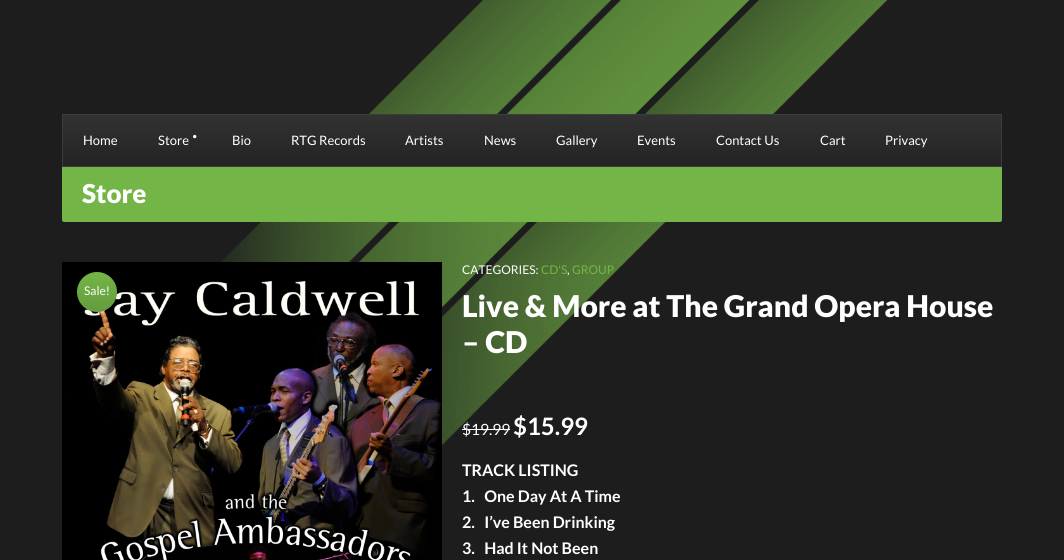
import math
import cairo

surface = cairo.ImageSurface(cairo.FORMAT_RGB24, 1064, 560)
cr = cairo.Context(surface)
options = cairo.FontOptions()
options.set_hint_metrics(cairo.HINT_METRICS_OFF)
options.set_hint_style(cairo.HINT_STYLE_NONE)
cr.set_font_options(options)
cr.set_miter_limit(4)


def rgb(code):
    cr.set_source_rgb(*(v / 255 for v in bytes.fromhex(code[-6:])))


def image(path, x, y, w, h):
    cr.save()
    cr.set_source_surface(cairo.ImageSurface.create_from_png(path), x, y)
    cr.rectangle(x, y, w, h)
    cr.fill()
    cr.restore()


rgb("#1d1d1d")
cr.paint()
image("img/1.png", 221, 0, 667, 445)
gradient = cairo.LinearGradient(532, 115, 532, 166)
gradient.add_color_stop_rgba(0, 0.196, 0.196, 0.196, 1)
gradient.add_color_stop_rgba(1, 0.137, 0.137, 0.137, 1)
cr.set_source(gradient)
cr.rectangle(63, 115, 938, 51)
cr.fill()
cr.rectangle(62.5, 114.5, 939, 52)
rgb("#3c3c3c")
cr.set_line_width(1)
cr.stroke()
image("img/2.png", 193, 134, 4, 5)
rgb("#74b547")
cr.new_path()
cr.move_to(62, 167)
cr.line_to(1002, 167)
cr.line_to(1002, 220)
cr.curve_to(1002, 221, 1001, 222, 1000, 222)
cr.line_to(64, 222)
cr.curve_to(63, 222, 62, 221, 62, 220)
cr.close_path()
cr.fill()
image("img/3.png", 62, 262, 380, 298)
gradient = cairo.LinearGradient(97, 272, 97, 312)
gradient.add_color_stop_rgba(0, 0.455, 0.71, 0.278, 1)
gradient.add_color_stop_rgba(1, 0.388, 0.612, 0.239, 1)
cr.set_source(gradient)
cr.arc(97, 292, 20, 0, 2 * math.pi)
cr.fill()
rgb("#ffffff")
cr.rectangle(462, 429, 48, 1)
cr.fill()
cr.select_font_face("Lato")
cr.set_font_size(13)
for x, y, s in [
    (83, 145, "Home"),
    (158, 145, "Store"),
    (232, 145, "Bio"),
    (291, 145, "RTG Records"),
    (405, 145, "Artists"),
    (484, 145, "News"),
    (556, 145, "Gallery"),
    (637, 145, "Events"),
    (716, 145, "Contact Us"),
    (820, 145, "Cart"),
    (885, 145, "Privacy"),
]:
    cr.move_to(x, y)
    cr.show_text(s)
cr.select_font_face("Lato Black")
cr.set_font_size(26)
cr.move_to(82, 203)
cr.show_text("Store")
cr.select_font_face("Lato")
cr.set_font_size(12)
cr.move_to(84, 295)
cr.show_text("Sale!")
cr.move_to(462, 274)
cr.show_text("CATEGORIES:")
rgb("#74b547")
cr.move_to(541, 274)
cr.show_text("CD'S")
rgb("#ffffff")
cr.move_to(567, 274)
cr.show_text(",")
rgb("#74b547")
cr.move_to(572, 274)
cr.show_text("GROUP")
cr.select_font_face("Lato Black")
cr.set_font_size(30)
rgb("#ffffff")
cr.move_to(462, 317)
cr.show_text("Live & More at The Grand Opera House")
cr.move_to(462, 353)
cr.show_text("– CD")
cr.select_font_face("Lato")
cr.set_font_size(15.5)
cr.move_to(462, 435)
cr.show_text("$19.99")
cr.select_font_face("Lato", cairo.FONT_SLANT_NORMAL, cairo.FONT_WEIGHT_BOLD)
cr.set_font_size(24)
cr.move_to(513, 435)
cr.show_text("$15.99")
cr.set_font_size(16)
for x, y, s in [
    (462, 476, "TRACK LISTING"),
    (462, 502, "1.   One Day At A Time"),
    (462, 528, "2.   I’ve Been Drinking"),
    (462, 554, "3.   Had It Not Been"),
]:
    cr.move_to(x, y)
    cr.show_text(s)
surface.write_to_png("page.png")
